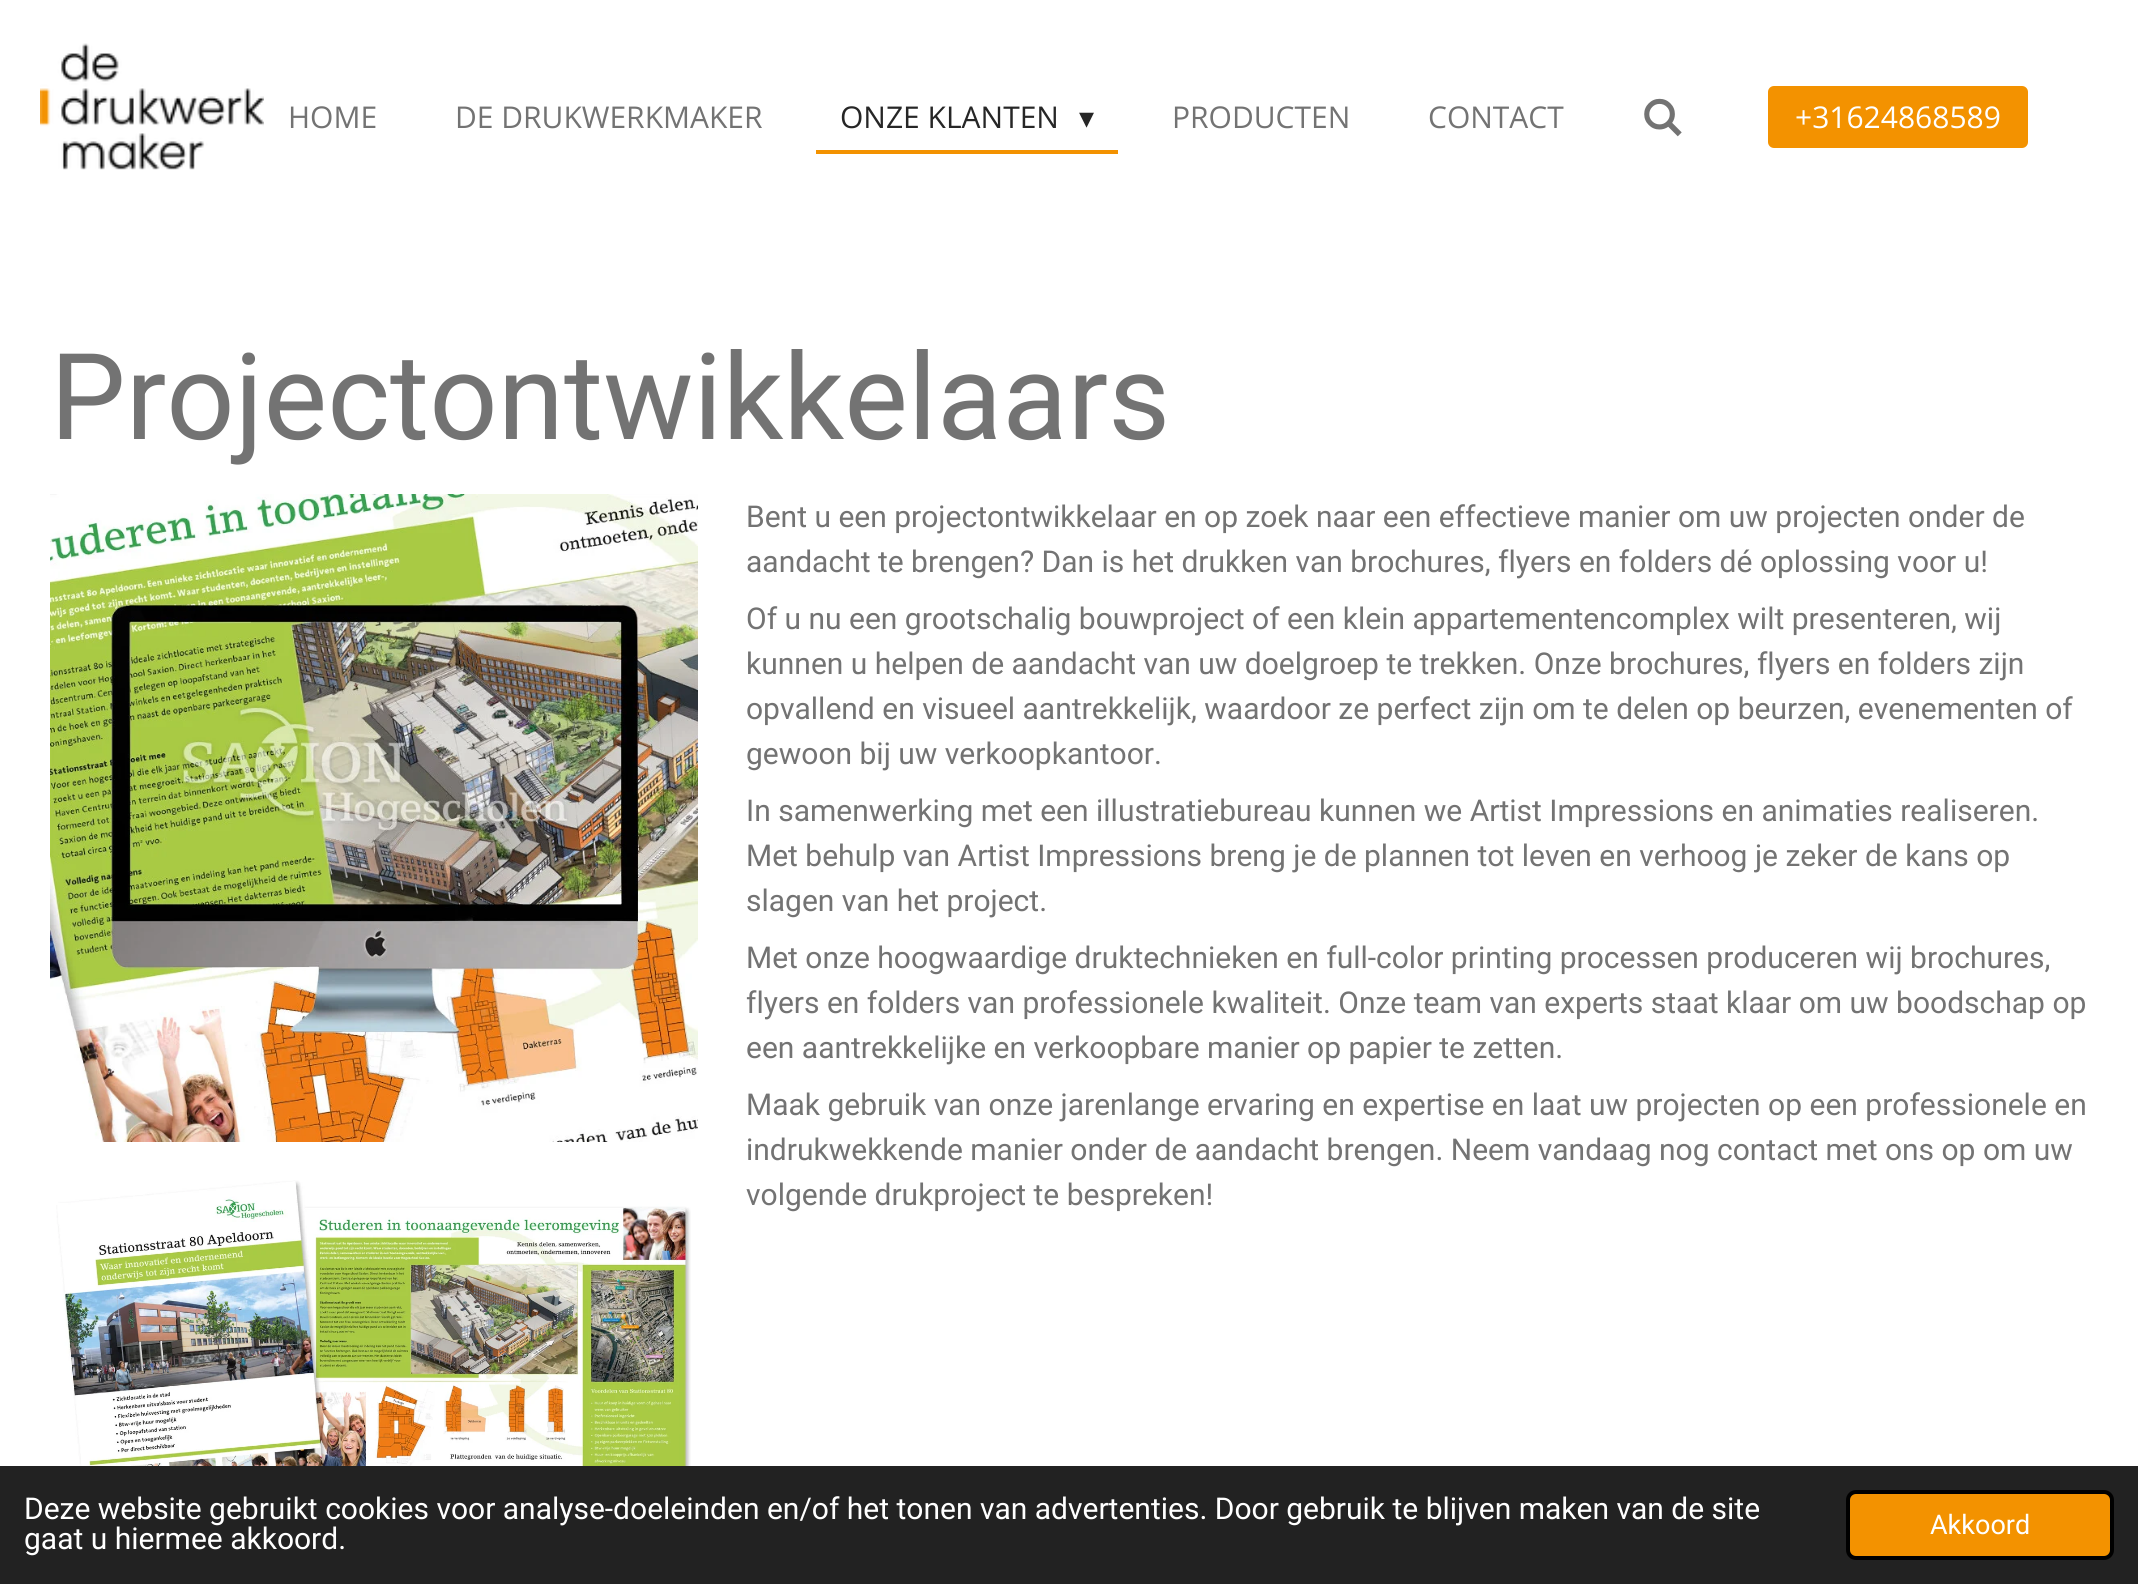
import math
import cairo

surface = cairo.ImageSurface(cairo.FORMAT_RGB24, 2138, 1584)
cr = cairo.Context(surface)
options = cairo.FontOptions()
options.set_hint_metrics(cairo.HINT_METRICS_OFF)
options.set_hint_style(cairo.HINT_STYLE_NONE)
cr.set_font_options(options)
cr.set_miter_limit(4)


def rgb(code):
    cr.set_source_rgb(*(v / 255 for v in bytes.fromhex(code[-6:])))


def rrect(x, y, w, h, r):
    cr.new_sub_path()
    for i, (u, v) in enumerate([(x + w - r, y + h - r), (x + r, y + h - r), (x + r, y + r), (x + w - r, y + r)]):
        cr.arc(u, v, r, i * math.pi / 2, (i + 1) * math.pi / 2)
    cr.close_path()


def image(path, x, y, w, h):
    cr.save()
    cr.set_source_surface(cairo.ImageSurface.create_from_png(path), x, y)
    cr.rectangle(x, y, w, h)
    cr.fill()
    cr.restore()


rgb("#ffffff")
cr.paint()
image("img/1.png", 40, 43, 224, 127)
rgb("#f39200")
cr.rectangle(816, 150, 302, 4)
cr.fill()
image("img/2.png", 1644, 98, 38, 39)
rrect(1768, 86, 260, 62, 6)
cr.fill()
image("img/3.png", 50, 494, 648, 648)
image("img/4.png", 56, 1180, 635, 286)
rgb("#222222")
cr.rectangle(0, 1466, 2138, 118)
cr.fill()
rgb("#f39200")
rrect(1848, 1492, 264, 66, 8)
cr.fill_preserve()
rgb("#000000")
cr.set_line_width(4)
cr.stroke()
cr.select_font_face("Open Sans")
cr.set_font_size(30)
rgb("#737373")
cr.move_to(288, 128)
cr.show_text("HOME")
cr.move_to(455, 128)
cr.show_text("DE DRUKWERKMAKER")
rgb("#262626")
cr.move_to(840, 128)
cr.show_text("ONZE KLANTEN")
cr.select_font_face("DejaVu Sans")
cr.move_to(1079, 128)
cr.show_text("▾")
cr.select_font_face("Open Sans")
rgb("#737373")
cr.move_to(1172, 128)
cr.show_text("PRODUCTEN")
cr.move_to(1428, 128)
cr.show_text("CONTACT")
rgb("#ffffff")
cr.move_to(1795, 128)
cr.show_text("+31624868589")
cr.select_font_face("Roboto")
cr.set_font_size(120)
rgb("#737373")
cr.move_to(50, 439)
cr.show_text("Projectontwikkelaars")
cr.set_font_size(30)
for x, y, s in [
    (746, 527, "Bent u een projectontwikkelaar en op zoek naar een effectieve manier om uw projecten onder de"),
    (746, 572, "aandacht te brengen? Dan is het drukken van brochures, flyers en folders dé oplossing voor u!"),
    (746, 629, "Of u nu een grootschalig bouwproject of een klein appartementencomplex wilt presenteren, wij"),
    (746, 674, "kunnen u helpen de aandacht van uw doelgroep te trekken. Onze brochures, flyers en folders zijn"),
    (746, 719, "opvallend en visueel aantrekkelijk, waardoor ze perfect zijn om te delen op beurzen, evenementen of"),
    (746, 764, "gewoon bij uw verkoopkantoor."),
    (746, 821, "In samenwerking met een illustratiebureau kunnen we Artist Impressions en animaties realiseren."),
    (746, 866, "Met behulp van Artist Impressions breng je de plannen tot leven en verhoog je zeker de kans op"),
    (746, 911, "slagen van het project."),
    (746, 968, "Met onze hoogwaardige druktechnieken en full-color printing processen produceren wij brochures,"),
    (746, 1013, "flyers en folders van professionele kwaliteit. Onze team van experts staat klaar om uw boodschap op"),
    (746, 1058, "een aantrekkelijke en verkoopbare manier op papier te zetten."),
    (746, 1115, "Maak gebruik van onze jarenlange ervaring en expertise en laat uw projecten op een professionele en"),
    (746, 1160, "indrukwekkende manier onder de aandacht brengen. Neem vandaag nog contact met ons op om uw"),
    (746, 1205, "volgende drukproject te bespreken!"),
]:
    cr.move_to(x, y)
    cr.show_text(s)
rgb("#ffffff")
cr.move_to(24, 1519)
cr.show_text("Deze website gebruikt cookies voor analyse-doeleinden en/of het tonen van advertenties. Door gebruik te blijven maken van de site")
cr.move_to(24, 1549)
cr.show_text("gaat u hiermee akkoord.")
cr.set_font_size(27)
cr.move_to(1930, 1534)
cr.show_text("Akkoord")
surface.write_to_png("page.png")
